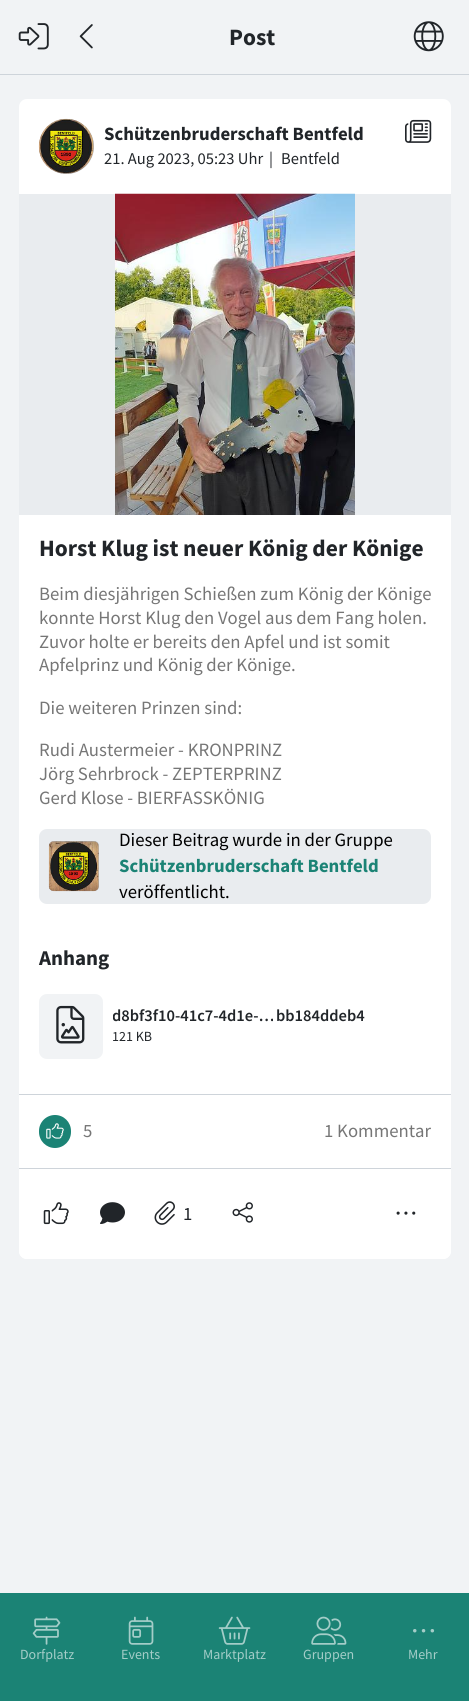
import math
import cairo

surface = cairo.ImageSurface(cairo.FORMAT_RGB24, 469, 1701)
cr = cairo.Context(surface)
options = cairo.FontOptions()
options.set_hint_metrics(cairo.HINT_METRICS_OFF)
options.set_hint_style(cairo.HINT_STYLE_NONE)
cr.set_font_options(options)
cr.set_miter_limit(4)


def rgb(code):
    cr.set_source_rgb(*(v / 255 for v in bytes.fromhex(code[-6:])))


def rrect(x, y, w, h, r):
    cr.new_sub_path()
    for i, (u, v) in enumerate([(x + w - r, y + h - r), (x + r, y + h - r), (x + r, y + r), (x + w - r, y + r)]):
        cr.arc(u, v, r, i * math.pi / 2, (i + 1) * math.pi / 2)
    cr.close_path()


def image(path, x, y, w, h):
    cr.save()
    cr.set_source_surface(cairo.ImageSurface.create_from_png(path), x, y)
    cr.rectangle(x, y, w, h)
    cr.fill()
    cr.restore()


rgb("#f1f3f5")
cr.paint()
rgb("#ced4da")
cr.rectangle(0, 74, 469, 1)
cr.fill()
image("img/1.png", 18, 23, 31, 27)
image("img/2.png", 79, 24, 14, 25)
image("img/3.png", 413, 21, 31, 31)
rgb("#ffffff")
rrect(19, 99, 432, 1160, 8)
cr.fill()
rgb("#adb5bd")
cr.arc(66.5, 146.5, 27.5, 0, 2 * math.pi)
cr.fill()
image("img/4.png", 38, 118, 56, 56)
image("img/5.png", 405, 119, 27, 24)
rgb("#e9ecef")
cr.rectangle(19, 194, 432, 321)
cr.fill()
image("img/6.png", 115, 193, 240, 322)
rrect(39, 829, 392, 75, 8)
cr.fill()
rgb("#adb5bd")
rrect(49, 841, 50, 50, 5)
cr.fill()
image("img/7.png", 48, 841, 51, 51)
rgb("#f1f3f5")
rrect(39, 994, 64, 65, 8)
cr.fill()
image("img/8.png", 56, 1005, 29, 39)
rgb("#ced4da")
cr.rectangle(19, 1094, 432, 1)
cr.fill()
cr.rectangle(19, 1168, 432, 1)
cr.fill()
rgb("#1b8375")
rrect(39, 1115, 32, 33, 16)
cr.fill()
image("img/9.png", 46, 1123, 18, 16)
rgb("#ffffff")
cr.new_path()
cr.move_to(19, 1169)
cr.line_to(451, 1169)
cr.line_to(451, 1251)
cr.curve_to(451, 1255.5, 447.5, 1259, 443, 1259)
cr.line_to(27, 1259)
cr.curve_to(22.5, 1259, 19, 1255.5, 19, 1251)
cr.close_path()
cr.fill()
image("img/10.png", 43, 1202, 26, 23)
image("img/11.png", 100, 1202, 25, 22)
image("img/12.png", 154, 1201, 21, 24)
image("img/13.png", 232, 1202, 21, 21)
image("img/14.png", 396, 1211, 20, 4)
rgb("#1b8375")
cr.rectangle(0, 1593, 469, 108)
cr.fill()
image("img/15.png", 32, 1616, 29, 29)
image("img/16.png", 128, 1616, 26, 29)
image("img/17.png", 218, 1616, 33, 29)
image("img/18.png", 311, 1616, 36, 29)
image("img/19.png", 413, 1629, 22, 4)
cr.select_font_face("Source Sans Pro", cairo.FONT_SLANT_NORMAL, cairo.FONT_WEIGHT_BOLD)
cr.set_font_size(23.4)
rgb("#212529")
cr.move_to(229, 45)
cr.show_text("Post")
cr.set_font_size(18.75)
cr.move_to(104, 140)
cr.show_text("Schützenbruderschaft Bentfeld")
cr.select_font_face("Source Sans Pro")
cr.set_font_size(16.5)
for x, y, s in [
    (104, 164, "21. Aug 2023, 05:23 Uhr"),
    (269, 164, "|"),
    (281, 164, "Bentfeld"),
]:
    cr.move_to(x, y)
    cr.show_text(s)
cr.select_font_face("Source Sans Pro", cairo.FONT_SLANT_NORMAL, cairo.FONT_WEIGHT_BOLD)
cr.set_font_size(23.4)
cr.move_to(39, 556)
cr.show_text("Horst Klug ist neuer König der Könige")
cr.select_font_face("Source Sans Pro")
cr.set_font_size(18.75)
rgb("#767676")
for x, y, s in [
    (39, 600, "Beim diesjährigen Schießen zum König der Könige"),
    (39, 624, "konnte Horst Klug den Vogel aus dem Fang holen."),
    (39, 648, "Zuvor holte er bereits den Apfel und ist somit"),
    (39, 671, "Apfelprinz und König der Könige."),
    (39, 714, "Die weiteren Prinzen sind:"),
    (39, 756, "Rudi Austermeier - KRONPRINZ"),
    (39, 780, "Jörg Sehrbrock - ZEPTERPRINZ"),
    (39, 804, "Gerd Klose - BIERFASSKÖNIG"),
]:
    cr.move_to(x, y)
    cr.show_text(s)
rgb("#000000")
cr.move_to(119, 846)
cr.show_text("Dieser Beitrag wurde in der Gruppe")
cr.select_font_face("Source Sans Pro", cairo.FONT_SLANT_NORMAL, cairo.FONT_WEIGHT_BOLD)
rgb("#1b8375")
cr.move_to(119, 872)
cr.show_text("Schützenbruderschaft Bentfeld")
cr.select_font_face("Source Sans Pro")
rgb("#000000")
cr.move_to(119, 898)
cr.show_text("veröffentlicht.")
cr.select_font_face("Source Sans Pro", cairo.FONT_SLANT_NORMAL, cairo.FONT_WEIGHT_BOLD)
cr.set_font_size(21)
rgb("#212529")
cr.move_to(39, 965)
cr.show_text("Anhang")
cr.save()
cr.rectangle(113, 1005, 163, 23)
cr.clip()
cr.select_font_face("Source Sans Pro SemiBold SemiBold")
cr.set_font_size(16.5)
cr.move_to(112, 1021)
cr.show_text("d8bf3f10-41c7-4d1e-…")
cr.restore()
cr.select_font_face("Source Sans Pro SemiBold SemiBold")
cr.set_font_size(16.5)
cr.move_to(276, 1021)
cr.show_text("bb184ddeb4")
cr.select_font_face("Source Sans Pro")
cr.set_font_size(14)
cr.move_to(112, 1041)
cr.show_text("121 KB")
cr.set_font_size(18.75)
rgb("#767676")
cr.move_to(83, 1137)
cr.show_text("5")
cr.move_to(324, 1137)
cr.show_text("1 Kommentar")
rgb("#212529")
cr.move_to(183, 1220)
cr.show_text("1")
cr.set_font_size(14)
rgb("#a4cdc8")
for x, y, s in [
    (20, 1659, "Dorfplatz"),
    (121, 1659, "Events"),
    (203, 1659, "Marktplatz"),
    (303, 1659, "Gruppen"),
    (408, 1659, "Mehr"),
]:
    cr.move_to(x, y)
    cr.show_text(s)
surface.write_to_png("page.png")
